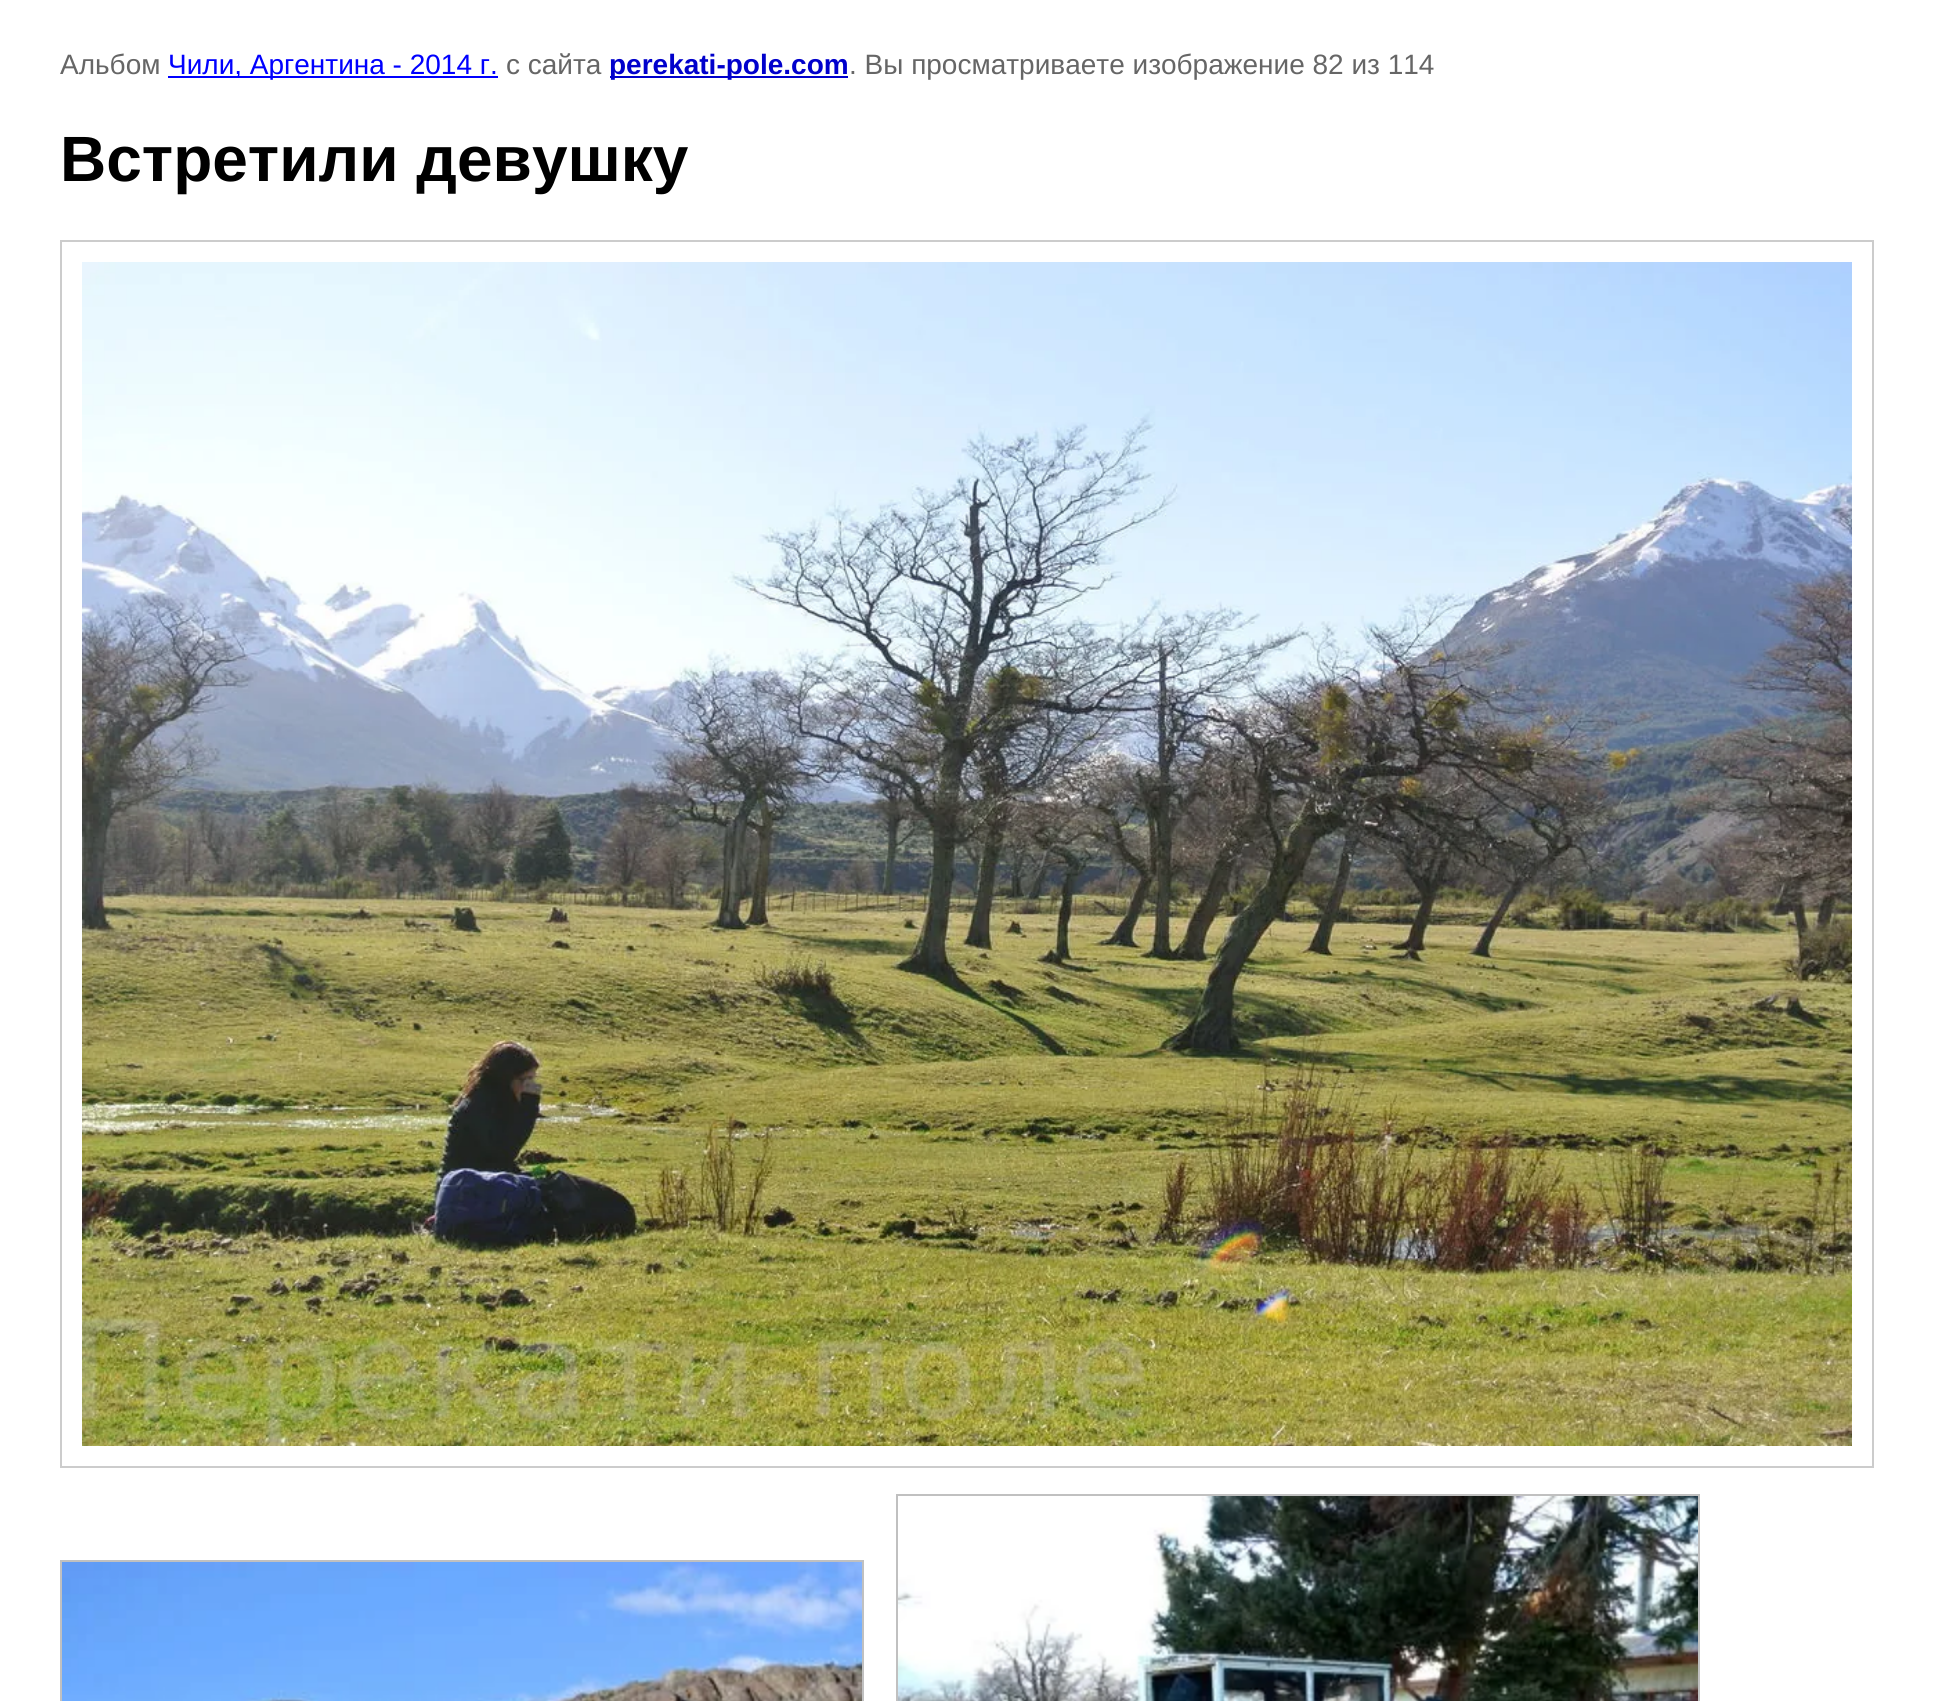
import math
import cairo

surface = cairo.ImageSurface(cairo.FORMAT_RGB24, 1934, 1701)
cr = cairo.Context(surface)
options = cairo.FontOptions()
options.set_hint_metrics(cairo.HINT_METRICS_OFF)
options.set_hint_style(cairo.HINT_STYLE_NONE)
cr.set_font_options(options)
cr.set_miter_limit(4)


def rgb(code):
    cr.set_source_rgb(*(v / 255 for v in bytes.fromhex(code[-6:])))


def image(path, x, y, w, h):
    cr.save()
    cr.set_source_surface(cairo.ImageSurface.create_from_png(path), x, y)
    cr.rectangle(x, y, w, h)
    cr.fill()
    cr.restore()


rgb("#ffffff")
cr.paint()
rgb("#0000ff")
cr.rectangle(168, 76, 330, 2)
cr.fill()
rgb("#0000cc")
cr.rectangle(610, 76, 238, 2)
cr.fill()
cr.rectangle(61, 241, 1812, 1226)
rgb("#cccccc")
cr.stroke()
image("img/1.png", 82, 262, 1770, 1184)
cr.rectangle(61, 1561, 802, 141)
rgb("#c0c0c0")
cr.stroke()
image("img/2.png", 62, 1562, 800, 139)
cr.rectangle(897, 1495, 802, 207)
cr.stroke()
image("img/3.png", 898, 1496, 800, 205)
cr.select_font_face("Liberation Sans")
cr.set_font_size(28)
rgb("#666666")
cr.move_to(60, 74)
cr.show_text("Альбом")
rgb("#0000ff")
cr.move_to(168, 74)
cr.show_text("Чили, Аргентина - 2014 г.")
rgb("#666666")
cr.move_to(506, 74)
cr.show_text("с сайта")
cr.select_font_face("Liberation Sans", cairo.FONT_SLANT_NORMAL, cairo.FONT_WEIGHT_BOLD)
rgb("#0000cc")
cr.move_to(609, 74)
cr.show_text("perekati-pole.com")
cr.select_font_face("Liberation Sans")
rgb("#666666")
cr.move_to(849, 74)
cr.show_text(". Вы просматриваете изображение 82 из 114")
cr.select_font_face("Liberation Sans", cairo.FONT_SLANT_NORMAL, cairo.FONT_WEIGHT_BOLD)
cr.set_font_size(64)
rgb("#000000")
cr.move_to(60, 181)
cr.show_text("Встретили девушку")
surface.write_to_png("page.png")
